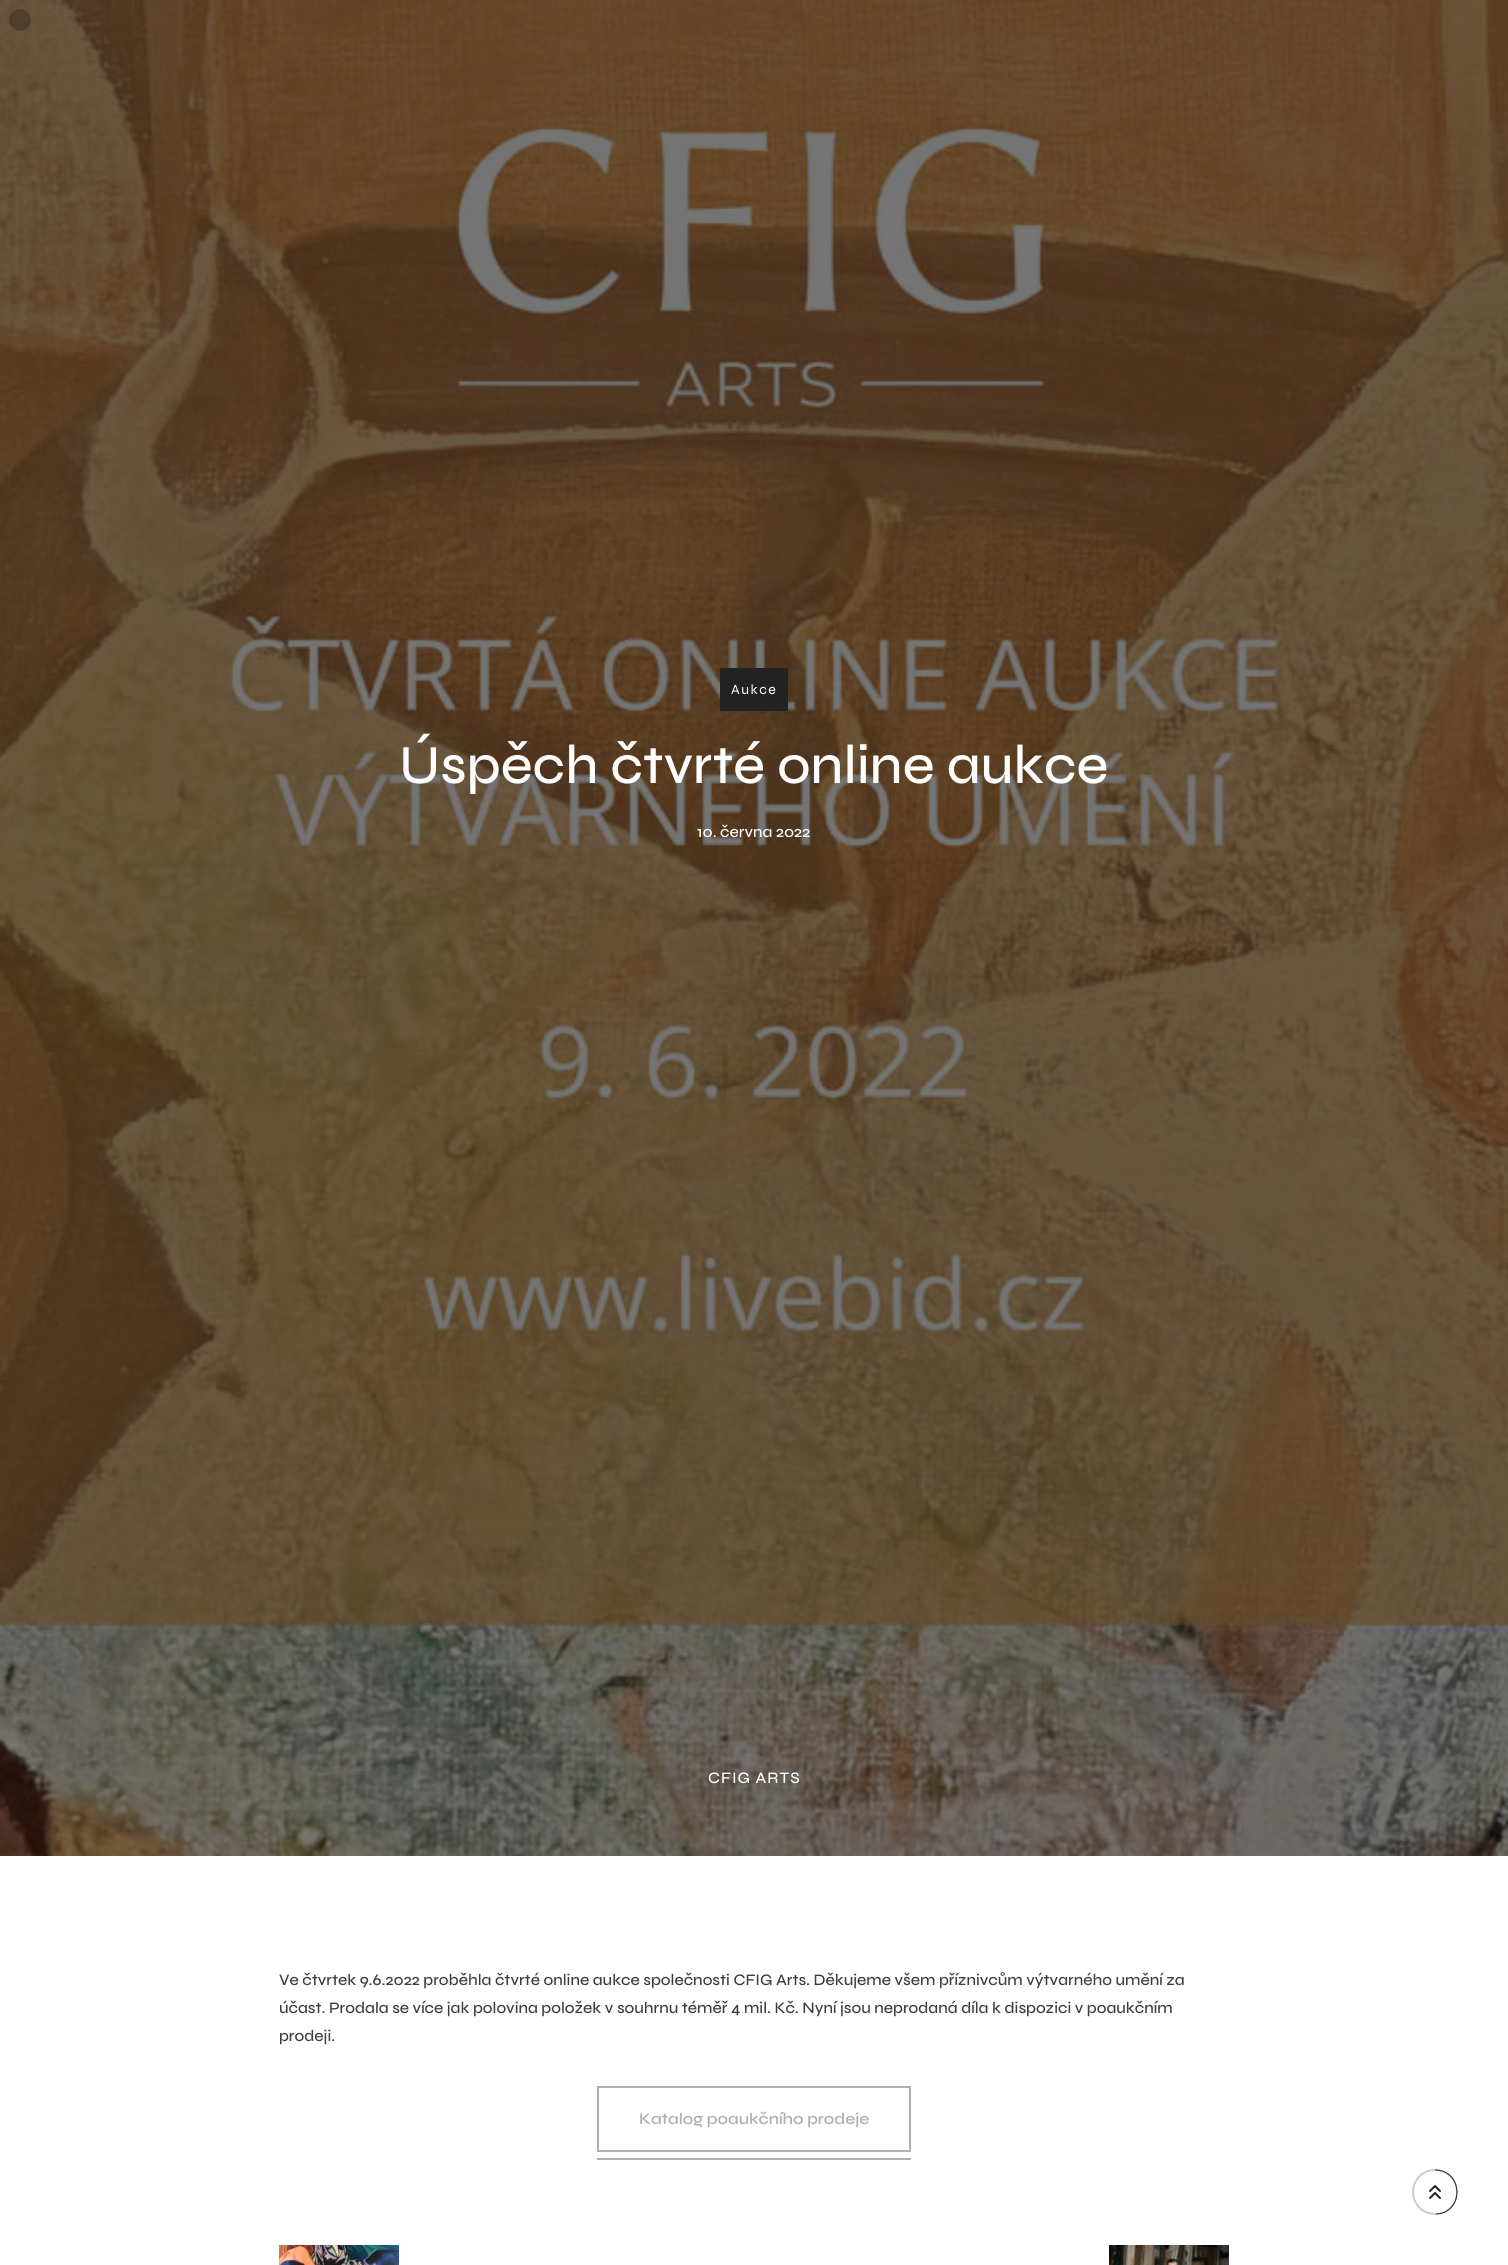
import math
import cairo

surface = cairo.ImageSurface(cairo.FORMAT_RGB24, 1508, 2265)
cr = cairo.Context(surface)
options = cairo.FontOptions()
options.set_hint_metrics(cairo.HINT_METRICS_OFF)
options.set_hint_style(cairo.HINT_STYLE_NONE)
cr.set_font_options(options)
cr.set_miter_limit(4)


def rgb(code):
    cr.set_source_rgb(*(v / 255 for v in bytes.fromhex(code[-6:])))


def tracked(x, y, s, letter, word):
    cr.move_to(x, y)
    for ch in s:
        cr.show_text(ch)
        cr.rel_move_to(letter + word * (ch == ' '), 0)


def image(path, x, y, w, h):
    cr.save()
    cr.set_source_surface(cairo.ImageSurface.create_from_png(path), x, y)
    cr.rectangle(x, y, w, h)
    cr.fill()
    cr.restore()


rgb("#ffffff")
cr.paint()
image("img/1.png", 0, 0, 1508, 1856)
cr.set_source_rgba(0, 0, 0, 0.22)
cr.arc(20, 20, 10, 0, 2 * math.pi)
cr.fill_preserve()
cr.set_line_width(1)
cr.stroke()
rgb("#222222")
cr.rectangle(720, 668, 68, 43)
cr.fill()
cr.rectangle(598, 2087, 312, 64)
rgb("#b0b0b0")
cr.set_line_width(2)
cr.stroke()
cr.rectangle(597, 2158, 314, 2)
cr.fill()
image("img/2.png", 279, 2245, 120, 20)
image("img/3.png", 1109, 2245, 120, 20)
cr.arc(1435, 2192, 22, 0, 2 * math.pi)
rgb("#cccccc")
cr.stroke()
cr.new_path()
cr.move_to(1435, 2170)
cr.curve_to(1463.5, 2170, 1464.5, 2213, 1436, 2214)
rgb("#1f2029")
cr.set_line_width(0.9)
cr.stroke()
image("img/4.png", 1429, 2185, 12, 14)
cr.select_font_face("Syne")
cr.set_font_size(14)
rgb("#ffffff")
tracked(731, 694, "Aukce", 1.5, 0)
cr.select_font_face("Syne Medium")
cr.set_font_size(55)
cr.move_to(399, 783)
cr.show_text("Úspěch čtvrté online aukce")
cr.set_font_size(16)
cr.move_to(697, 837)
cr.show_text("10. června 2022")
tracked(708, 1783, "CFIG ARTS", 1, 0)
rgb("#3d3d3d")
for x, y, s in [
    (279, 1985, "Ve čtvrtek 9.6.2022 proběhla čtvrté online aukce společnosti CFIG Arts. Děkujeme všem příznivcům výtvarného umění za"),
    (279, 2013, "účast. Prodala se více jak polovina položek v souhrnu téměř 4 mil. Kč. Nyní jsou neprodaná díla k dispozici v poaukčním"),
    (279, 2041, "prodeji."),
]:
    cr.move_to(x, y)
    cr.show_text(s)
cr.select_font_face("Syne SemiBold")
rgb("#b0b0b0")
cr.move_to(639, 2124)
cr.show_text("Katalog poaukčního prodeje")
surface.write_to_png("page.png")
